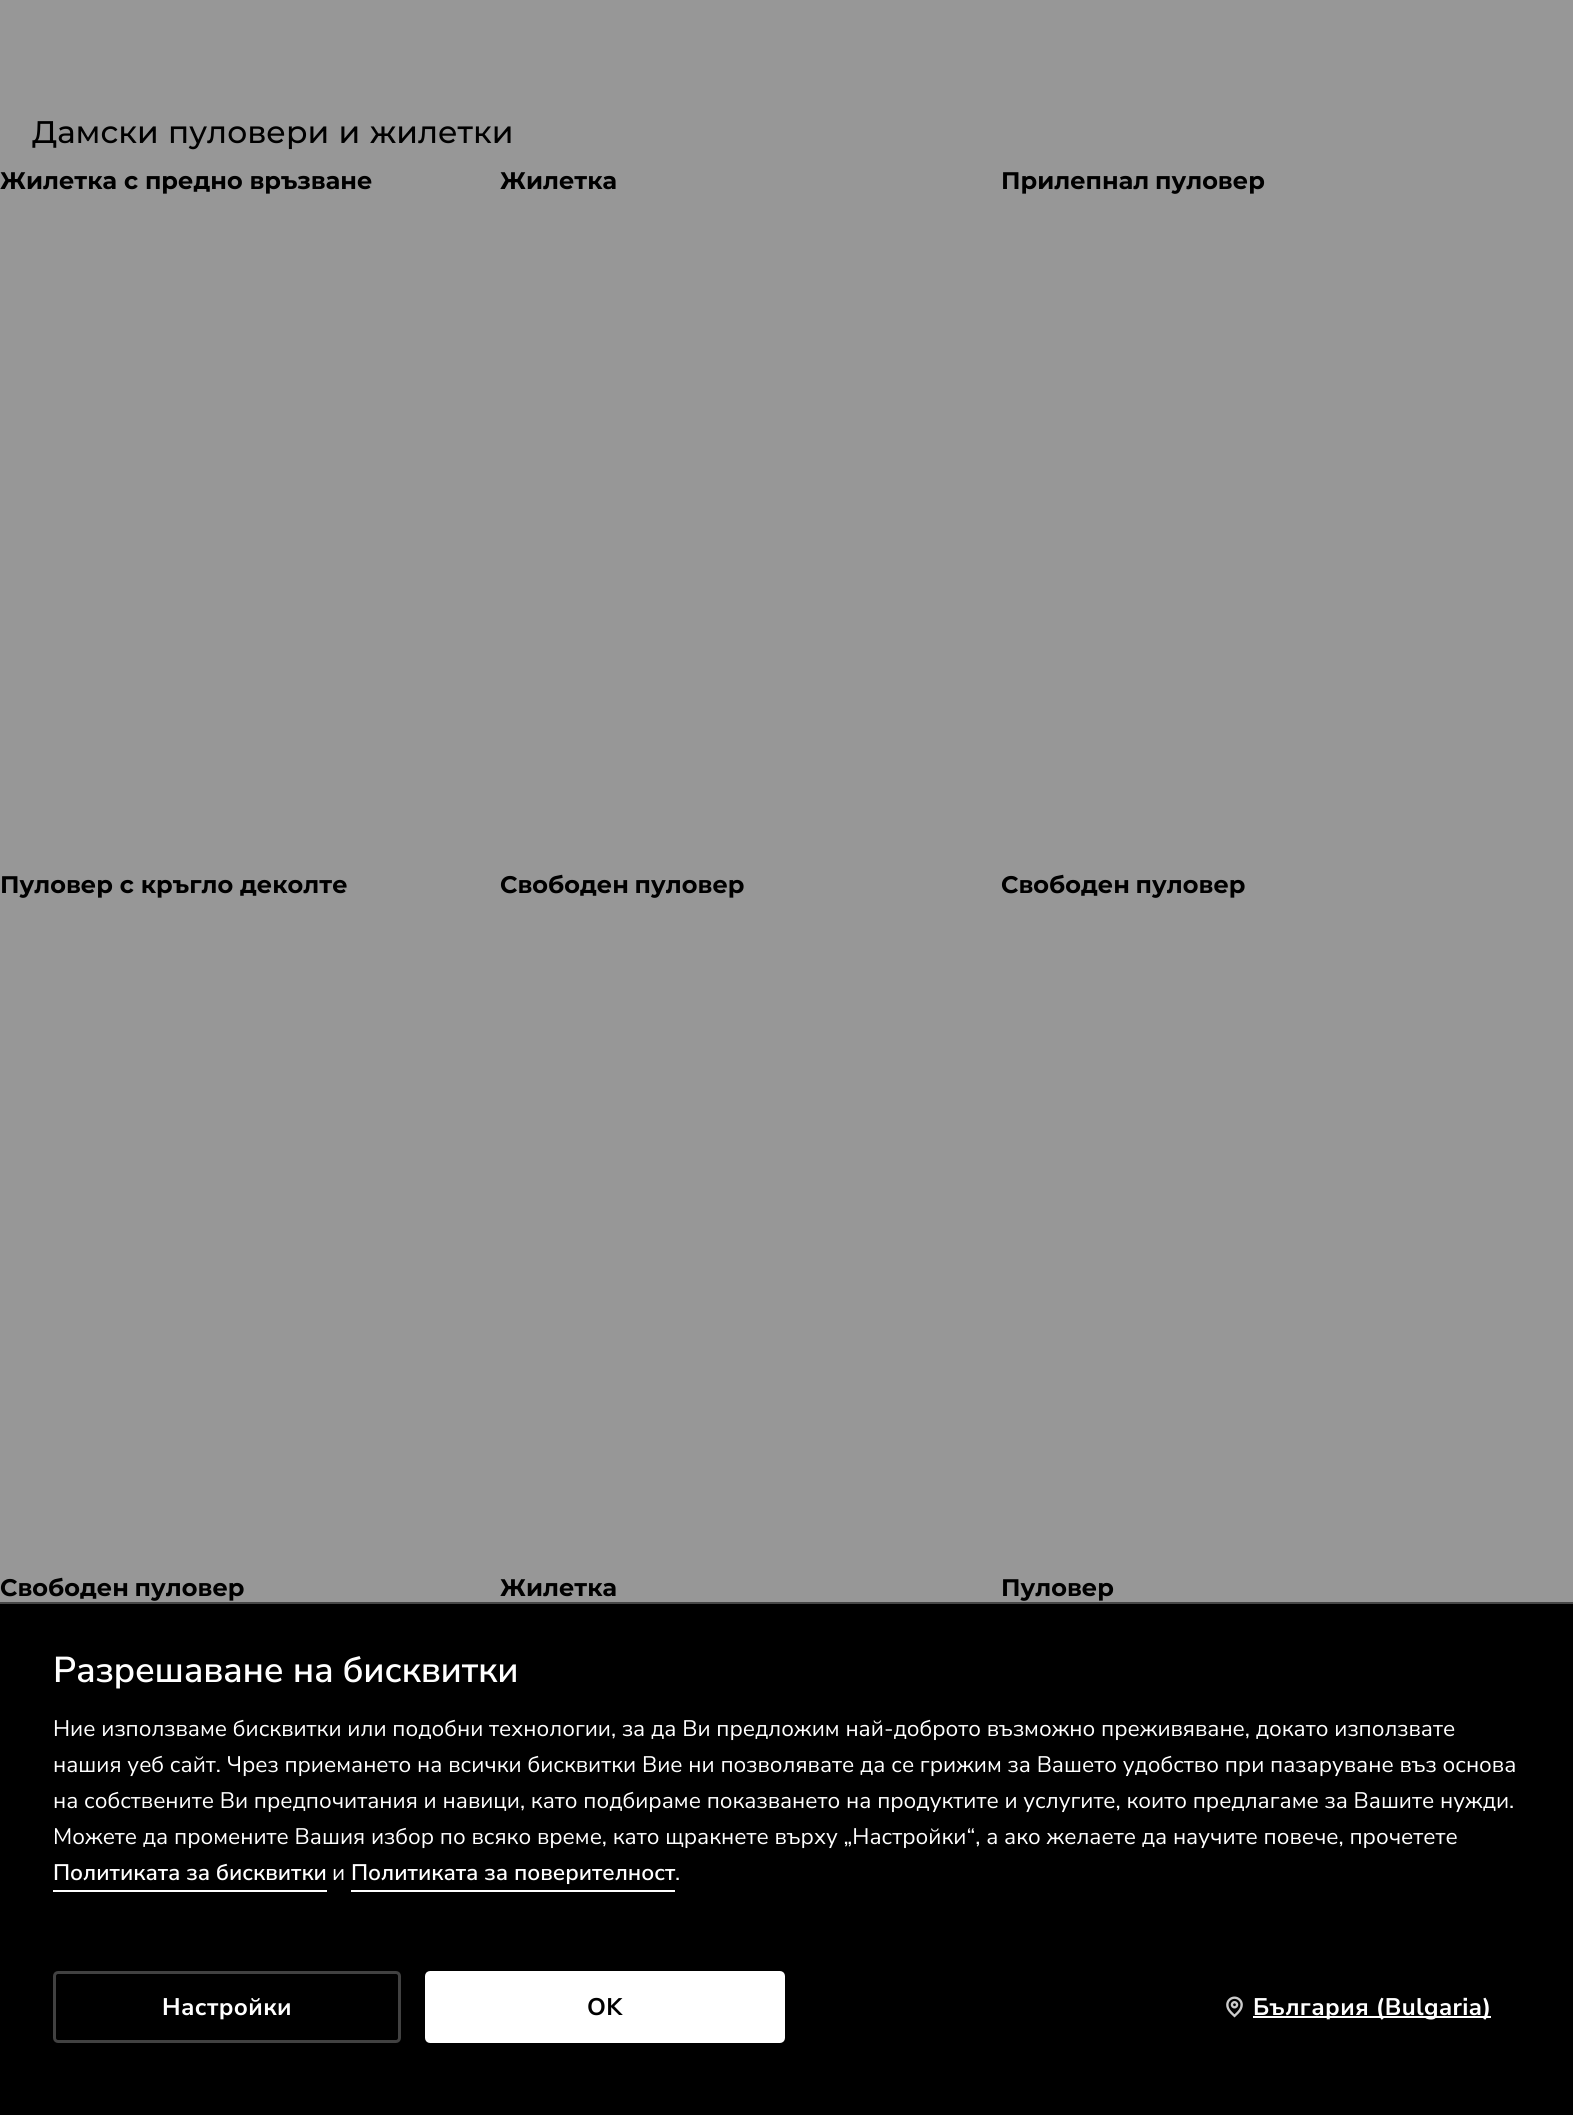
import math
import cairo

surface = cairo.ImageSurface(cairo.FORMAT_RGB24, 1573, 2115)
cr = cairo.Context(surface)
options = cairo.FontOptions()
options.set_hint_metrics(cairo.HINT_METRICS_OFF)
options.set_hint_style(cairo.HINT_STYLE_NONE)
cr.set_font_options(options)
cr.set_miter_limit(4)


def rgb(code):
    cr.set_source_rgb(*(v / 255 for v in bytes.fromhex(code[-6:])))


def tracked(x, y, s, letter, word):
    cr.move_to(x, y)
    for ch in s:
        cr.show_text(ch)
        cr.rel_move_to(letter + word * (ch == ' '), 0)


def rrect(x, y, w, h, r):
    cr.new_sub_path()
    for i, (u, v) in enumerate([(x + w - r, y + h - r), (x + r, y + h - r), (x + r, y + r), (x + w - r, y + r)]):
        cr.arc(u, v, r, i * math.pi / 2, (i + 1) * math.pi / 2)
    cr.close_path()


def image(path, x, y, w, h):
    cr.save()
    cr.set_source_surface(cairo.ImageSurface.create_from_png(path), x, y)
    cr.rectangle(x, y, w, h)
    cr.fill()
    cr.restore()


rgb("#979797")
cr.paint()
for x, y, w, h, color in [
    (0, 1604, 1573, 511, "#000000"),
    (0, 1602, 1573, 2, "#474747"),
    (53, 1890, 274, 2, "#ffffff"),
    (351, 1890, 324, 2, "#ffffff"),
]:
    rgb(color)
    cr.rectangle(x, y, w, h)
    cr.fill()
rrect(54.5, 1972.5, 345, 69, 3.5)
rgb("#414141")
cr.set_line_width(3)
cr.stroke()
rgb("#ffffff")
rrect(426.5, 1972.5, 357, 69, 3.5)
cr.fill_preserve()
cr.stroke()
image("img/1.png", 1226, 1996, 17, 22)
cr.rectangle(1253, 2016, 238, 2)
cr.fill()
cr.select_font_face("Montserrat Medium")
cr.set_font_size(31.25)
rgb("#000000")
tracked(32, 143, "Дамски пуловери и жилетки", 0, 1)
cr.select_font_face("Montserrat", cairo.FONT_SLANT_NORMAL, cairo.FONT_WEIGHT_BOLD)
cr.set_font_size(24)
cr.move_to(0, 189)
cr.show_text("Жилетка с предно връзване")
cr.move_to(500, 189)
cr.show_text("Жилетка")
tracked(1001, 189, "Прилепнал пуловер", 0, -1)
cr.move_to(0, 893)
cr.show_text("Пуловер с кръгло деколте")
for x, y, s in [
    (500, 893, "Свободен пуловер"),
    (1001, 893, "Свободен пуловер"),
    (0, 1596, "Свободен пуловер"),
]:
    tracked(x, y, s, 0, -1)
cr.move_to(500, 1596)
cr.show_text("Жилетка")
cr.move_to(1001, 1596)
cr.show_text("Пуловер")
cr.select_font_face("Nunito Sans SemiBold")
cr.set_font_size(36)
rgb("#ffffff")
tracked(53, 1682, "Разрешаване на бисквитки", -0.2, 0)
cr.select_font_face("Nunito Sans")
cr.set_font_size(22.5)
for x, y, s in [
    (53, 1736, "Ние използваме бисквитки или подобни технологии, за да Ви предложим най-доброто възможно преживяване, докато използвате"),
    (53, 1772, "нашия уеб сайт. Чрез приемането на всички бисквитки Вие ни позволявате да се грижим за Вашето удобство при пазаруване въз основа"),
    (53, 1808, "на собствените Ви предпочитания и навици, като подбираме показването на продуктите и услугите, които предлагаме за Вашите нужди."),
    (53, 1844, "Можете да промените Вашия избор по всяко време, като щракнете върху „Настройки“, а ако желаете да научите повече, прочетете"),
]:
    cr.move_to(x, y)
    cr.show_text(s)
cr.select_font_face("Nunito Sans SemiBold")
cr.move_to(53, 1880)
cr.show_text("Политиката за бисквитки")
cr.select_font_face("Nunito Sans")
cr.move_to(332, 1880)
cr.show_text("и")
cr.select_font_face("Nunito Sans SemiBold")
cr.move_to(351, 1880)
cr.show_text("Политиката за поверителност")
cr.select_font_face("Nunito Sans")
cr.move_to(675, 1880)
cr.show_text(".")
cr.select_font_face("Nunito Sans", cairo.FONT_SLANT_NORMAL, cairo.FONT_WEIGHT_BOLD)
cr.set_font_size(24)
tracked(162, 2015, "Настройки", 0.4, 0)
rgb("#000000")
tracked(587, 2015, "OK", 0.4, 0)
rgb("#ffffff")
tracked(1253, 2015, "България (Bulgaria)", 0.4, 0)
surface.write_to_png("page.png")
